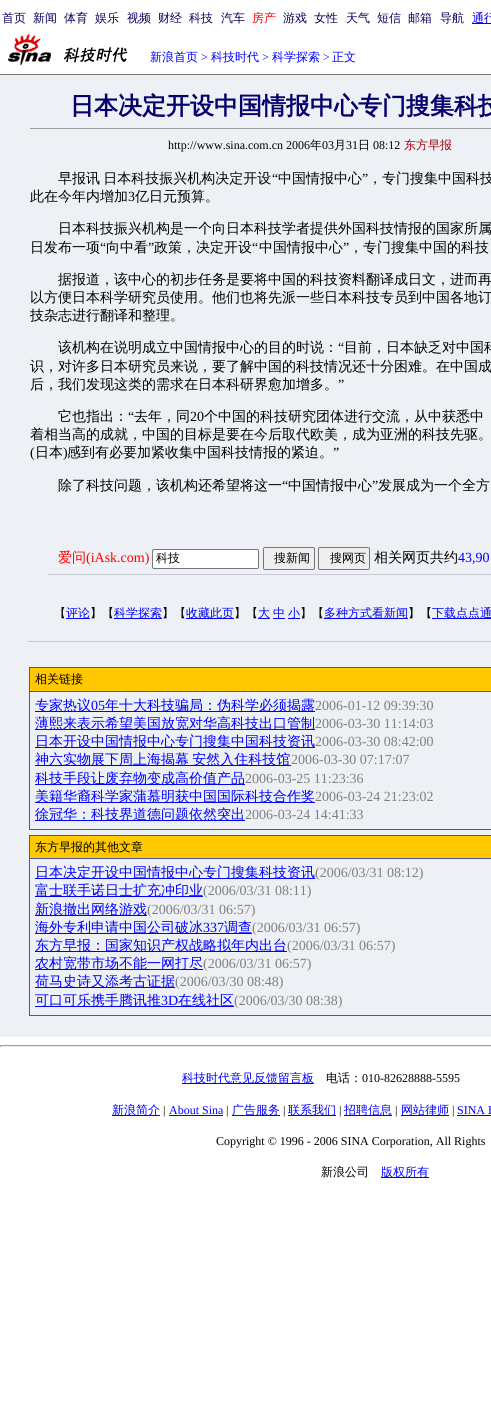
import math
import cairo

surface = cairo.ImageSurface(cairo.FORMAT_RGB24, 491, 1401)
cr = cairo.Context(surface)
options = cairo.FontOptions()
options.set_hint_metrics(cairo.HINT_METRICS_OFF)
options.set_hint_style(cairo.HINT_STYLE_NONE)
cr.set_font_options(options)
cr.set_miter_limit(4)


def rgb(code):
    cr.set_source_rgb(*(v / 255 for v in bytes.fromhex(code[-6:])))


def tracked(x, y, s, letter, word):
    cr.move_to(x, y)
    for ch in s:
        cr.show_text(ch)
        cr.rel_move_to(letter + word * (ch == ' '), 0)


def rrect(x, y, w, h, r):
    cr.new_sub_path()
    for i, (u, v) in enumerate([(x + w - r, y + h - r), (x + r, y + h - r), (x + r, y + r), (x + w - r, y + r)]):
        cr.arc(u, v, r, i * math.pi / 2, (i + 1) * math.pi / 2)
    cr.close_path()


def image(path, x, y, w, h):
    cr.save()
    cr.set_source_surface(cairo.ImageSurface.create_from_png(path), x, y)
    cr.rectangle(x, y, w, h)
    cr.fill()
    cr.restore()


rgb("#ffffff")
cr.paint()
rgb("#0000ff")
cr.rectangle(472, 23, 19, 1)
cr.fill()
image("img/1.png", 8, 34, 120, 32)
for x, y, w, h, color in [
    (0, 74, 491, 1, "#747474"),
    (0, 75, 491, 962, "#edf0f5"),
    (30, 128, 461, 1, "#9f9f9f"),
    (48, 574, 443, 1, "#c6c9d1"),
]:
    rgb(color)
    cr.rectangle(x, y, w, h)
    cr.fill()
rgb("#ffffff")
rrect(152.5, 549.5, 106, 19, 1.5)
cr.fill_preserve()
rgb("#767676")
cr.set_line_width(1)
cr.stroke()
rgb("#efefef")
rrect(263.5, 547.5, 51, 22, 1.5)
cr.fill_preserve()
rgb("#767676")
cr.stroke()
rgb("#efefef")
rrect(318.5, 547.5, 51, 22, 1.5)
cr.fill_preserve()
rgb("#767676")
cr.stroke()
for x, y, w, h, color in [
    (66, 618, 24, 1, "#0000ff"),
    (114, 618, 48, 1, "#0000ff"),
    (186, 618, 48, 1, "#0000ff"),
    (258, 618, 12, 1, "#0000ff"),
    (273, 618, 12, 1, "#0000ff"),
    (288, 618, 12, 1, "#0000ff"),
    (324, 618, 84, 1, "#0000ff"),
    (432, 618, 59, 1, "#0000ff"),
    (28, 641, 463, 1, "#c6c9d1"),
    (29, 667, 462, 163, "#5550a2"),
    (30, 668, 461, 23, "#ffc800"),
    (30, 692, 461, 137, "#edf0f5"),
    (35, 711, 280, 1, "#0000ff"),
    (35, 729, 280, 1, "#0000ff"),
    (35, 747, 280, 1, "#0000ff"),
    (35, 765, 256, 1, "#0000ff"),
    (35, 784, 210, 1, "#0000ff"),
    (35, 802, 280, 1, "#0000ff"),
    (35, 820, 210, 1, "#0000ff"),
    (29, 835, 462, 181, "#5550a2"),
    (30, 836, 461, 22, "#ffc800"),
    (30, 859, 461, 156, "#edf0f5"),
    (35, 878, 280, 1, "#0000ff"),
    (35, 896, 168, 1, "#0000ff"),
    (35, 915, 112, 1, "#0000ff"),
    (35, 933, 217, 1, "#0000ff"),
    (35, 951, 252, 1, "#0000ff"),
    (35, 969, 168, 1, "#0000ff"),
    (35, 987, 140, 1, "#0000ff"),
    (35, 1006, 199, 1, "#0000ff"),
    (0, 1045, 491, 1, "#9f9f9f"),
    (0, 1046, 491, 1, "#eeeeee"),
    (0, 1045, 1, 2, "#9f9f9f"),
    (182, 1083, 132, 1, "#0000ff"),
    (112, 1115, 48, 1, "#0000ff"),
    (169, 1115, 54, 1, "#0000ff"),
    (232, 1115, 48, 1, "#0000ff"),
    (288, 1115, 48, 1, "#0000ff"),
    (344, 1115, 48, 1, "#0000ff"),
    (401, 1115, 48, 1, "#0000ff"),
    (457, 1115, 34, 1, "#0000ff"),
    (381, 1177, 48, 1, "#0000ff"),
]:
    rgb(color)
    cr.rectangle(x, y, w, h)
    cr.fill()
cr.select_font_face("WenQuanYi Zen Hei Medium")
cr.set_font_size(12)
rgb("#07015b")
for x, y, s in [
    (2, 22, "首页"),
    (33, 22, "新闻"),
    (64, 22, "体育"),
    (95, 22, "娱乐"),
    (127, 22, "视频"),
    (158, 22, "财经"),
    (189, 22, "科技"),
    (221, 22, "汽车"),
]:
    cr.move_to(x, y)
    cr.show_text(s)
rgb("#ff0000")
cr.move_to(252, 22)
cr.show_text("房产")
rgb("#07015b")
for x, y, s in [
    (283, 22, "游戏"),
    (314, 22, "女性"),
    (346, 22, "天气"),
    (377, 22, "短信"),
    (408, 22, "邮箱"),
    (440, 22, "导航"),
]:
    cr.move_to(x, y)
    cr.show_text(s)
rgb("#0000ff")
cr.move_to(472, 22)
cr.show_text("通行")
cr.move_to(150, 61)
cr.show_text("新浪首页")
cr.select_font_face("Liberation Serif")
cr.move_to(201, 61)
cr.show_text(">")
cr.select_font_face("WenQuanYi Zen Hei Medium")
cr.move_to(211, 61)
cr.show_text("科技时代")
cr.select_font_face("Liberation Serif")
cr.move_to(262, 61)
cr.show_text(">")
cr.select_font_face("WenQuanYi Zen Hei Medium")
cr.move_to(272, 61)
cr.show_text("科学探索")
cr.select_font_face("Liberation Serif")
cr.move_to(323, 61)
cr.show_text(">")
cr.select_font_face("WenQuanYi Zen Hei Medium")
cr.move_to(332, 61)
cr.show_text("正文")
cr.select_font_face("WenQuanYi Zen Hei", cairo.FONT_SLANT_NORMAL, cairo.FONT_WEIGHT_BOLD)
cr.set_font_size(24)
rgb("#05006c")
cr.move_to(70, 114)
cr.show_text("日本决定开设中国情报中心专门搜集科技")
cr.select_font_face("Liberation Serif")
cr.set_font_size(12)
rgb("#000000")
cr.move_to(168, 149)
cr.show_text("http://www.sina.com.cn 2006")
cr.select_font_face("WenQuanYi Zen Hei Medium")
cr.move_to(310, 149)
cr.show_text("年")
cr.select_font_face("Liberation Serif")
cr.move_to(322, 149)
cr.show_text("03")
cr.select_font_face("WenQuanYi Zen Hei Medium")
cr.move_to(334, 149)
cr.show_text("月")
cr.select_font_face("Liberation Serif")
cr.move_to(346, 149)
cr.show_text("31")
cr.select_font_face("WenQuanYi Zen Hei Medium")
cr.move_to(358, 149)
cr.show_text("日")
cr.select_font_face("Liberation Serif")
cr.move_to(373, 149)
cr.show_text("08:12")
cr.select_font_face("WenQuanYi Zen Hei Medium")
rgb("#a20010")
cr.move_to(404, 149)
cr.show_text("东方早报")
cr.set_font_size(14)
rgb("#000000")
tracked(58, 183, "早报讯 日本科技振兴机构决定开设", 0, -1)
cr.select_font_face("Liberation Serif")
cr.move_to(272, 183)
cr.show_text("“")
cr.select_font_face("WenQuanYi Zen Hei Medium")
cr.move_to(278, 183)
cr.show_text("中国情报中心")
cr.select_font_face("Liberation Serif")
cr.move_to(362, 183)
cr.show_text("”")
cr.select_font_face("WenQuanYi Zen Hei Medium")
cr.move_to(368, 183)
cr.show_text("，专门搜集中国科技")
cr.move_to(30, 201)
cr.show_text("此在今年内增加")
cr.select_font_face("Liberation Serif")
cr.move_to(128, 201)
cr.show_text("3")
cr.select_font_face("WenQuanYi Zen Hei Medium")
for x, y, s in [
    (135, 201, "亿日元预算。"),
    (58, 233, "日本科技振兴机构是一个向日本科技学者提供外国科技情报的国家所属"),
    (30, 252, "日发布一项"),
]:
    cr.move_to(x, y)
    cr.show_text(s)
cr.select_font_face("Liberation Serif")
cr.move_to(100, 252)
cr.show_text("“")
cr.select_font_face("WenQuanYi Zen Hei Medium")
cr.move_to(106, 252)
cr.show_text("向中看")
cr.select_font_face("Liberation Serif")
cr.move_to(148, 252)
cr.show_text("”")
cr.select_font_face("WenQuanYi Zen Hei Medium")
cr.move_to(154, 252)
cr.show_text("政策，决定开设")
cr.select_font_face("Liberation Serif")
cr.move_to(252, 252)
cr.show_text("“")
cr.select_font_face("WenQuanYi Zen Hei Medium")
cr.move_to(259, 252)
cr.show_text("中国情报中心")
cr.select_font_face("Liberation Serif")
cr.move_to(343, 252)
cr.show_text("”")
cr.select_font_face("WenQuanYi Zen Hei Medium")
for x, y, s in [
    (349, 252, "，专门搜集中国的科技"),
    (58, 284, "据报道，该中心的初步任务是要将中国的科技资料翻译成日文，进而再"),
    (30, 302, "以方便日本科学研究员使用。他们也将先派一些日本科技专员到中国各地订"),
    (30, 320, "技杂志进行翻译和整理。"),
    (58, 352, "该机构在说明成立中国情报中心的目的时说："),
]:
    cr.move_to(x, y)
    cr.show_text(s)
cr.select_font_face("Liberation Serif")
cr.move_to(338, 352)
cr.show_text("“")
cr.select_font_face("WenQuanYi Zen Hei Medium")
for x, y, s in [
    (344, 352, "目前，日本缺乏对中国科"),
    (30, 371, "识，对许多日本研究员来说，要了解中国的科技情况还十分困难。在中国成"),
    (30, 389, "后，我们发现这类的需求在日本科研界愈加增多。"),
]:
    cr.move_to(x, y)
    cr.show_text(s)
cr.select_font_face("Liberation Serif")
cr.move_to(338, 389)
cr.show_text("”")
cr.select_font_face("WenQuanYi Zen Hei Medium")
cr.move_to(58, 421)
cr.show_text("它也指出：")
cr.select_font_face("Liberation Serif")
cr.move_to(128, 421)
cr.show_text("“")
cr.select_font_face("WenQuanYi Zen Hei Medium")
cr.move_to(134, 421)
cr.show_text("去年，同")
cr.select_font_face("Liberation Serif")
cr.move_to(190, 421)
cr.show_text("20")
cr.select_font_face("WenQuanYi Zen Hei Medium")
cr.move_to(204, 421)
cr.show_text("个中国的科技研究团体进行交流，从中获悉中")
cr.move_to(30, 439)
cr.show_text("着相当高的成就，中国的目标是要在今后取代欧美，成为亚洲的科技先驱。")
cr.select_font_face("Liberation Serif")
cr.move_to(30, 457)
cr.show_text("(")
cr.select_font_face("WenQuanYi Zen Hei Medium")
cr.move_to(35, 457)
cr.show_text("日本")
cr.select_font_face("Liberation Serif")
cr.move_to(63, 457)
cr.show_text(")")
cr.select_font_face("WenQuanYi Zen Hei Medium")
cr.move_to(67, 457)
cr.show_text("感到有必要加紧收集中国科技情报的紧迫。")
cr.select_font_face("Liberation Serif")
cr.move_to(333, 457)
cr.show_text("”")
cr.select_font_face("WenQuanYi Zen Hei Medium")
cr.move_to(58, 490)
cr.show_text("除了科技问题，该机构还希望将这一")
cr.select_font_face("Liberation Serif")
cr.move_to(282, 490)
cr.show_text("“")
cr.select_font_face("WenQuanYi Zen Hei Medium")
cr.move_to(288, 490)
cr.show_text("中国情报中心")
cr.select_font_face("Liberation Serif")
cr.move_to(372, 490)
cr.show_text("”")
cr.select_font_face("WenQuanYi Zen Hei Medium")
cr.move_to(378, 490)
cr.show_text("发展成为一个全方")
rgb("#ff0000")
cr.move_to(58, 562)
cr.show_text("爱问")
cr.select_font_face("Liberation Serif")
cr.move_to(86, 562)
cr.show_text("(iAsk.com)")
cr.select_font_face("WenQuanYi Zen Hei Medium")
cr.set_font_size(12)
rgb("#000000")
for x, y, s in [
    (156, 562, "科技"),
    (274, 562, "搜新闻"),
    (330, 562, "搜网页"),
]:
    cr.move_to(x, y)
    cr.show_text(s)
cr.set_font_size(14)
cr.move_to(374, 562)
cr.show_text("相关网页共约")
cr.select_font_face("Liberation Serif")
rgb("#0000ff")
cr.move_to(458, 562)
cr.show_text("43,90")
cr.select_font_face("WenQuanYi Zen Hei Medium")
cr.set_font_size(12)
rgb("#000000")
cr.move_to(54, 617)
cr.show_text("【")
rgb("#0000ff")
cr.move_to(66, 617)
cr.show_text("评论")
rgb("#000000")
cr.move_to(90, 617)
cr.show_text("】【")
rgb("#0000ff")
cr.move_to(114, 617)
cr.show_text("科学探索")
rgb("#000000")
cr.move_to(162, 617)
cr.show_text("】【")
rgb("#0000ff")
cr.move_to(186, 617)
cr.show_text("收藏此页")
rgb("#000000")
cr.move_to(234, 617)
cr.show_text("】【")
rgb("#0000ff")
for x, y, s in [
    (258, 617, "大"),
    (273, 617, "中"),
    (288, 617, "小"),
]:
    cr.move_to(x, y)
    cr.show_text(s)
rgb("#000000")
cr.move_to(300, 617)
cr.show_text("】【")
rgb("#0000ff")
cr.move_to(324, 617)
cr.show_text("多种方式看新闻")
rgb("#000000")
cr.move_to(408, 617)
cr.show_text("】【")
rgb("#0000ff")
cr.move_to(432, 617)
cr.show_text("下载点点通")
rgb("#000000")
cr.move_to(35, 683)
cr.show_text("相关链接")
cr.set_font_size(14)
rgb("#0000ff")
cr.move_to(35, 710)
cr.show_text("专家热议")
cr.select_font_face("Liberation Serif")
cr.move_to(91, 710)
cr.show_text("05")
cr.select_font_face("WenQuanYi Zen Hei Medium")
cr.move_to(105, 710)
cr.show_text("年十大科技骗局：伪科学必须揭露")
cr.select_font_face("Liberation Serif")
rgb("#808080")
cr.move_to(315, 710)
cr.show_text("2006-01-12 09:39:30")
cr.select_font_face("WenQuanYi Zen Hei Medium")
rgb("#0000ff")
cr.move_to(35, 728)
cr.show_text("薄熙来表示希望美国放宽对华高科技出口管制")
cr.select_font_face("Liberation Serif")
rgb("#808080")
cr.move_to(315, 728)
cr.show_text("2006-03-30 11:14:03")
cr.select_font_face("WenQuanYi Zen Hei Medium")
rgb("#0000ff")
cr.move_to(35, 746)
cr.show_text("日本开设中国情报中心专门搜集中国科技资讯")
cr.select_font_face("Liberation Serif")
rgb("#808080")
cr.move_to(315, 746)
cr.show_text("2006-03-30 08:42:00")
cr.select_font_face("WenQuanYi Zen Hei Medium")
rgb("#0000ff")
tracked(35, 764, "神六实物展下周上海揭幕 安然入住科技馆", 0, -1)
cr.select_font_face("Liberation Serif")
rgb("#808080")
cr.move_to(291, 764)
cr.show_text("2006-03-30 07:17:07")
cr.select_font_face("WenQuanYi Zen Hei Medium")
rgb("#0000ff")
cr.move_to(35, 783)
cr.show_text("科技手段让废弃物变成高价值产品")
cr.select_font_face("Liberation Serif")
rgb("#808080")
cr.move_to(245, 783)
cr.show_text("2006-03-25 11:23:36")
cr.select_font_face("WenQuanYi Zen Hei Medium")
rgb("#0000ff")
cr.move_to(35, 801)
cr.show_text("美籍华裔科学家蒲慕明获中国国际科技合作奖")
cr.select_font_face("Liberation Serif")
rgb("#808080")
cr.move_to(315, 801)
cr.show_text("2006-03-24 21:23:02")
cr.select_font_face("WenQuanYi Zen Hei Medium")
rgb("#0000ff")
cr.move_to(35, 819)
cr.show_text("徐冠华：科技界道德问题依然突出")
cr.select_font_face("Liberation Serif")
rgb("#808080")
cr.move_to(245, 819)
cr.show_text("2006-03-24 14:41:33")
cr.select_font_face("WenQuanYi Zen Hei Medium")
cr.set_font_size(12)
rgb("#000000")
cr.move_to(35, 851)
cr.show_text("东方早报的其他文章")
cr.set_font_size(14)
rgb("#0000ff")
cr.move_to(35, 877)
cr.show_text("日本决定开设中国情报中心专门搜集科技资讯")
cr.select_font_face("Liberation Serif")
rgb("#808080")
cr.move_to(315, 877)
cr.show_text("(2006/03/31 08:12)")
cr.select_font_face("WenQuanYi Zen Hei Medium")
rgb("#0000ff")
cr.move_to(35, 895)
cr.show_text("富士联手诺日士扩充冲印业")
cr.select_font_face("Liberation Serif")
rgb("#808080")
cr.move_to(203, 895)
cr.show_text("(2006/03/31 08:11)")
cr.select_font_face("WenQuanYi Zen Hei Medium")
rgb("#0000ff")
cr.move_to(35, 914)
cr.show_text("新浪撤出网络游戏")
cr.select_font_face("Liberation Serif")
rgb("#808080")
cr.move_to(147, 914)
cr.show_text("(2006/03/31 06:57)")
cr.select_font_face("WenQuanYi Zen Hei Medium")
rgb("#0000ff")
cr.move_to(35, 932)
cr.show_text("海外专利申请中国公司破冰")
cr.select_font_face("Liberation Serif")
cr.move_to(203, 932)
cr.show_text("337")
cr.select_font_face("WenQuanYi Zen Hei Medium")
cr.move_to(224, 932)
cr.show_text("调查")
cr.select_font_face("Liberation Serif")
rgb("#808080")
cr.move_to(252, 932)
cr.show_text("(2006/03/31 06:57)")
cr.select_font_face("WenQuanYi Zen Hei Medium")
rgb("#0000ff")
cr.move_to(35, 950)
cr.show_text("东方早报：国家知识产权战略拟年内出台")
cr.select_font_face("Liberation Serif")
rgb("#808080")
cr.move_to(287, 950)
cr.show_text("(2006/03/31 06:57)")
cr.select_font_face("WenQuanYi Zen Hei Medium")
rgb("#0000ff")
cr.move_to(35, 968)
cr.show_text("农村宽带市场不能一网打尽")
cr.select_font_face("Liberation Serif")
rgb("#808080")
cr.move_to(203, 968)
cr.show_text("(2006/03/31 06:57)")
cr.select_font_face("WenQuanYi Zen Hei Medium")
rgb("#0000ff")
cr.move_to(35, 986)
cr.show_text("荷马史诗又添考古证据")
cr.select_font_face("Liberation Serif")
rgb("#808080")
cr.move_to(175, 986)
cr.show_text("(2006/03/30 08:48)")
cr.select_font_face("WenQuanYi Zen Hei Medium")
rgb("#0000ff")
cr.move_to(35, 1005)
cr.show_text("可口可乐携手腾讯推")
cr.select_font_face("Liberation Serif")
cr.move_to(161, 1005)
cr.show_text("3D")
cr.select_font_face("WenQuanYi Zen Hei Medium")
cr.move_to(178, 1005)
cr.show_text("在线社区")
cr.select_font_face("Liberation Serif")
rgb("#808080")
cr.move_to(234, 1005)
cr.show_text("(2006/03/30 08:38)")
cr.select_font_face("WenQuanYi Zen Hei Medium")
cr.set_font_size(12)
rgb("#0000ff")
cr.move_to(182, 1082)
cr.show_text("科技时代意见反馈留言板")
rgb("#000000")
cr.move_to(326, 1082)
cr.show_text("电话：")
cr.select_font_face("Liberation Serif")
cr.move_to(362, 1082)
cr.show_text("010-82628888-5595")
cr.select_font_face("WenQuanYi Zen Hei Medium")
rgb("#0000ff")
cr.move_to(112, 1114)
cr.show_text("新浪简介")
cr.select_font_face("Liberation Serif")
rgb("#000000")
cr.move_to(163, 1114)
cr.show_text("|")
rgb("#0000ff")
cr.move_to(169, 1114)
cr.show_text("About Sina")
rgb("#000000")
cr.move_to(226, 1114)
cr.show_text("|")
cr.select_font_face("WenQuanYi Zen Hei Medium")
rgb("#0000ff")
cr.move_to(232, 1114)
cr.show_text("广告服务")
cr.select_font_face("Liberation Serif")
rgb("#000000")
cr.move_to(283, 1114)
cr.show_text("|")
cr.select_font_face("WenQuanYi Zen Hei Medium")
rgb("#0000ff")
cr.move_to(288, 1114)
cr.show_text("联系我们")
cr.select_font_face("Liberation Serif")
rgb("#000000")
cr.move_to(339, 1114)
cr.show_text("|")
cr.select_font_face("WenQuanYi Zen Hei Medium")
rgb("#0000ff")
cr.move_to(344, 1114)
cr.show_text("招聘信息")
cr.select_font_face("Liberation Serif")
rgb("#000000")
cr.move_to(395, 1114)
cr.show_text("|")
cr.select_font_face("WenQuanYi Zen Hei Medium")
rgb("#0000ff")
cr.move_to(401, 1114)
cr.show_text("网站律师")
cr.select_font_face("Liberation Serif")
rgb("#000000")
cr.move_to(452, 1114)
cr.show_text("|")
rgb("#0000ff")
cr.move_to(457, 1114)
cr.show_text("SINA E")
rgb("#000000")
cr.move_to(216, 1145)
cr.show_text("Copyright © 1996 - 2006 SINA Corporation, All Rights")
cr.select_font_face("WenQuanYi Zen Hei Medium")
cr.move_to(321, 1176)
cr.show_text("新浪公司")
rgb("#0000ff")
cr.move_to(381, 1176)
cr.show_text("版权所有")
surface.write_to_png("page.png")
